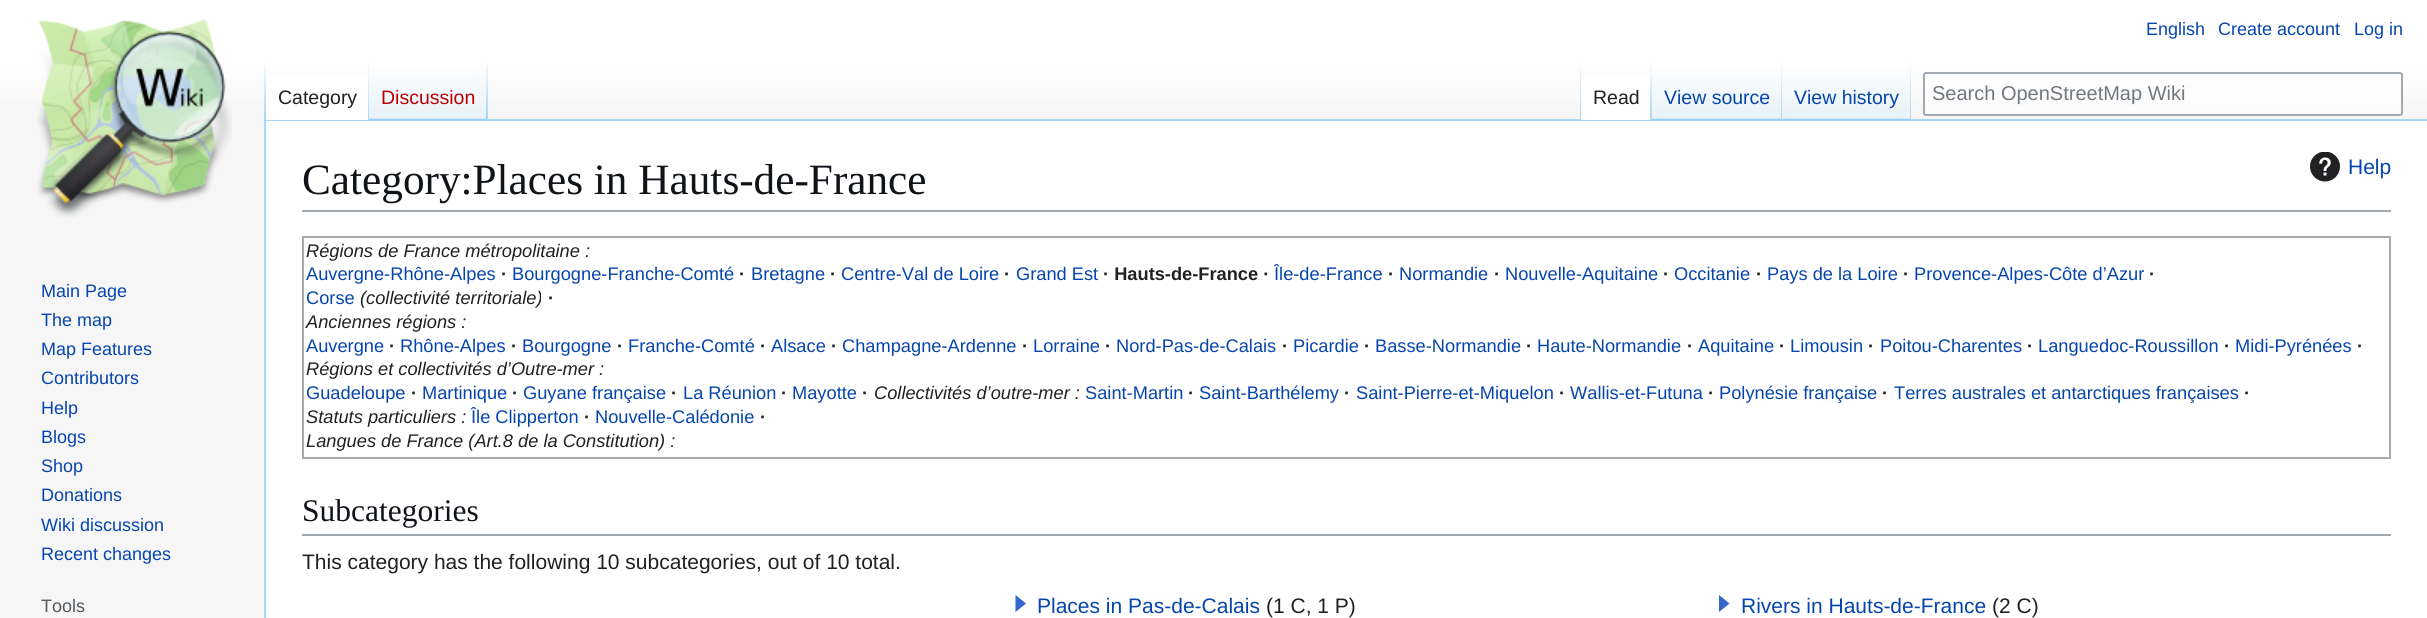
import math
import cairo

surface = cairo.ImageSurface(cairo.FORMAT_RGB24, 2427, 618)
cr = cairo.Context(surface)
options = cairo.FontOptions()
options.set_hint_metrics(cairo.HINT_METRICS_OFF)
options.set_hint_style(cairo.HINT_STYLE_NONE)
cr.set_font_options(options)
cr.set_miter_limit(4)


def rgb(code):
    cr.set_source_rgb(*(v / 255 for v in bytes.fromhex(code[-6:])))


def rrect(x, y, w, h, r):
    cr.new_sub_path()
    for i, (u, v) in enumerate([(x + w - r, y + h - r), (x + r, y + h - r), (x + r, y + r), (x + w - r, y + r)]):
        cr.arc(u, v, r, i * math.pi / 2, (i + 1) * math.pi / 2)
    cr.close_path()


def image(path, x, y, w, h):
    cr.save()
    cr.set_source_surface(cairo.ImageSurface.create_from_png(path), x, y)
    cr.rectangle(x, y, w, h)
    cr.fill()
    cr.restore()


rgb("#f6f6f6")
cr.paint()
gradient = cairo.LinearGradient(1214, 0, 1214, 120)
gradient.add_color_stop_rgba(0.5, 1, 1, 1, 1)
gradient.add_color_stop_rgba(1, 0.965, 0.965, 0.965, 1)
cr.set_source(gradient)
cr.rectangle(0, 0, 2427, 103)
cr.fill()
rgb("#a7d7f9")
cr.rectangle(264, 119, 2163, 2)
cr.fill()
cr.rectangle(264, 119, 2, 499)
cr.fill()
gradient = cairo.LinearGradient(265, 60, 265, 120)
gradient.add_color_stop_rgba(0, 0.655, 0.843, 0.976, 0)
gradient.add_color_stop_rgba(1, 0.655, 0.843, 0.976, 1)
cr.set_source(gradient)
cr.rectangle(264, 60, 2, 60)
cr.fill()
rgb("#ffffff")
cr.rectangle(266, 77, 102, 43)
cr.fill()
gradient = cairo.LinearGradient(368, 60, 368, 120)
gradient.add_color_stop_rgba(0, 1, 1, 1, 1)
gradient.add_color_stop_rgba(1, 0.655, 0.843, 0.976, 1)
cr.set_source(gradient)
cr.rectangle(368, 60, 1, 60)
cr.fill()
gradient = cairo.LinearGradient(428, 120, 428, 60)
gradient.add_color_stop_rgba(0, 0.467, 0.757, 0.965, 1)
gradient.add_color_stop_rgba(0.03, 0.91, 0.949, 0.973, 1)
gradient.add_color_stop_rgba(1, 1, 1, 1, 1)
cr.set_source(gradient)
cr.rectangle(369, 69, 119, 51)
cr.fill()
gradient = cairo.LinearGradient(487, 60, 487, 120)
gradient.add_color_stop_rgba(0, 0.655, 0.843, 0.976, 0)
gradient.add_color_stop_rgba(1, 0.655, 0.843, 0.976, 1)
cr.set_source(gradient)
cr.rectangle(486, 60, 2, 60)
cr.fill()
gradient = cairo.LinearGradient(1580, 60, 1580, 120)
gradient.add_color_stop_rgba(0, 0.655, 0.843, 0.976, 0)
gradient.add_color_stop_rgba(1, 0.655, 0.843, 0.976, 1)
cr.set_source(gradient)
cr.rectangle(1580, 60, 1, 60)
cr.fill()
rgb("#ffffff")
cr.rectangle(1581, 77, 69, 43)
cr.fill()
gradient = cairo.LinearGradient(1651, 60, 1651, 120)
gradient.add_color_stop_rgba(0, 1, 1, 1, 1)
gradient.add_color_stop_rgba(1, 0.655, 0.843, 0.976, 1)
cr.set_source(gradient)
cr.rectangle(1650, 60, 2, 60)
cr.fill()
gradient = cairo.LinearGradient(1717, 120, 1717, 60)
gradient.add_color_stop_rgba(0, 0.467, 0.757, 0.965, 1)
gradient.add_color_stop_rgba(0.03, 0.91, 0.949, 0.973, 1)
gradient.add_color_stop_rgba(1, 1, 1, 1, 1)
cr.set_source(gradient)
cr.rectangle(1652, 69, 130, 51)
cr.fill()
gradient = cairo.LinearGradient(1781, 60, 1781, 120)
gradient.add_color_stop_rgba(0, 0.655, 0.843, 0.976, 0)
gradient.add_color_stop_rgba(1, 0.655, 0.843, 0.976, 1)
cr.set_source(gradient)
cr.rectangle(1781, 60, 1, 60)
cr.fill()
gradient = cairo.LinearGradient(1847, 120, 1847, 60)
gradient.add_color_stop_rgba(0, 0.467, 0.757, 0.965, 1)
gradient.add_color_stop_rgba(0.03, 0.91, 0.949, 0.973, 1)
gradient.add_color_stop_rgba(1, 1, 1, 1, 1)
cr.set_source(gradient)
cr.rectangle(1782, 69, 129, 51)
cr.fill()
gradient = cairo.LinearGradient(1910, 60, 1910, 120)
gradient.add_color_stop_rgba(0, 0.655, 0.843, 0.976, 0)
gradient.add_color_stop_rgba(1, 0.655, 0.843, 0.976, 1)
cr.set_source(gradient)
cr.rectangle(1910, 60, 1, 60)
cr.fill()
cr.set_source_rgba(1, 1, 1, 0.5)
rrect(1924, 73, 478, 42, 2)
cr.fill_preserve()
rgb("#a2a9b1")
cr.stroke()
image("img/1.png", 37, 19, 195, 199)
rgb("#ffffff")
cr.rectangle(266, 121, 2161, 497)
cr.fill()
rgb("#a2a9b1")
cr.rectangle(302, 210, 2089, 2)
cr.fill()
image("img/2.png", 2310, 152, 30, 30)
cr.rectangle(303, 237, 2087, 221)
rgb("#aaaaaa")
cr.stroke()
rgb("#a2a9b1")
cr.rectangle(302, 534, 2089, 2)
cr.fill()
rgb("#3366cc")
cr.new_path()
cr.move_to(1026, 603.5)
cr.line_to(1015.5, 612)
cr.line_to(1015.5, 595)
cr.close_path()
cr.fill()
cr.new_path()
cr.move_to(1729.5, 603.5)
cr.line_to(1719, 612)
cr.line_to(1719, 595)
cr.close_path()
cr.fill()
cr.select_font_face("Liberation Sans")
cr.set_font_size(18)
rgb("#0645ad")
for x, y, s in [
    (2146, 35, "English"),
    (2218, 35, "Create account"),
    (2354, 35, "Log in"),
]:
    cr.move_to(x, y)
    cr.show_text(s)
cr.set_font_size(19.5)
rgb("#202122")
cr.move_to(278, 104)
cr.show_text("Category")
rgb("#ba0000")
cr.move_to(381, 104)
cr.show_text("Discussion")
rgb("#202122")
cr.move_to(1593, 104)
cr.show_text("Read")
rgb("#0645ad")
cr.move_to(1664, 104)
cr.show_text("View source")
cr.move_to(1794, 104)
cr.show_text("View history")
cr.set_font_size(20)
rgb("#72777d")
cr.move_to(1932, 100)
cr.show_text("Search OpenStreetMap Wiki")
cr.set_font_size(18)
rgb("#0645ad")
for x, y, s in [
    (41, 297, "Main Page"),
    (41, 326, "The map"),
    (41, 355, "Map Features"),
    (41, 384, "Contributors"),
    (41, 414, "Help"),
    (41, 443, "Blogs"),
    (41, 472, "Shop"),
    (41, 501, "Donations"),
    (41, 531, "Wiki discussion"),
    (41, 560, "Recent changes"),
]:
    cr.move_to(x, y)
    cr.show_text(s)
rgb("#54595d")
cr.move_to(41, 612)
cr.show_text("Tools")
cr.select_font_face("Liberation Serif")
cr.set_font_size(43.25)
rgb("#101418")
cr.move_to(302, 194)
cr.show_text("Category:Places in Hauts-de-France")
cr.select_font_face("Liberation Sans")
cr.set_font_size(21)
rgb("#0645ad")
cr.move_to(2348, 174)
cr.show_text("Help")
cr.select_font_face("Liberation Sans", cairo.FONT_SLANT_ITALIC)
cr.set_font_size(18.25)
rgb("#202122")
cr.move_to(306, 257)
cr.show_text("Régions de France métropolitaine :")
cr.select_font_face("Liberation Sans")
rgb("#0645ad")
cr.move_to(306, 280)
cr.show_text("Auvergne-Rhône-Alpes")
cr.select_font_face("Liberation Sans", cairo.FONT_SLANT_NORMAL, cairo.FONT_WEIGHT_BOLD)
rgb("#202122")
cr.move_to(501, 280)
cr.show_text("·")
cr.select_font_face("Liberation Sans")
rgb("#0645ad")
cr.move_to(512, 280)
cr.show_text("Bourgogne-Franche-Comté")
cr.select_font_face("Liberation Sans", cairo.FONT_SLANT_NORMAL, cairo.FONT_WEIGHT_BOLD)
rgb("#202122")
cr.move_to(739, 280)
cr.show_text("·")
cr.select_font_face("Liberation Sans")
rgb("#0645ad")
cr.move_to(751, 280)
cr.show_text("Bretagne")
cr.select_font_face("Liberation Sans", cairo.FONT_SLANT_NORMAL, cairo.FONT_WEIGHT_BOLD)
rgb("#202122")
cr.move_to(830, 280)
cr.show_text("·")
cr.select_font_face("Liberation Sans")
rgb("#0645ad")
cr.move_to(841, 280)
cr.show_text("Centre-Val de Loire")
cr.select_font_face("Liberation Sans", cairo.FONT_SLANT_NORMAL, cairo.FONT_WEIGHT_BOLD)
rgb("#202122")
cr.move_to(1004, 280)
cr.show_text("·")
cr.select_font_face("Liberation Sans")
rgb("#0645ad")
cr.move_to(1016, 280)
cr.show_text("Grand Est")
cr.select_font_face("Liberation Sans", cairo.FONT_SLANT_NORMAL, cairo.FONT_WEIGHT_BOLD)
rgb("#202122")
cr.move_to(1103, 280)
cr.show_text("· Hauts-de-France ·")
cr.select_font_face("Liberation Sans")
rgb("#0645ad")
cr.move_to(1274, 280)
cr.show_text("Île-de-France")
cr.select_font_face("Liberation Sans", cairo.FONT_SLANT_NORMAL, cairo.FONT_WEIGHT_BOLD)
rgb("#202122")
cr.move_to(1388, 280)
cr.show_text("·")
cr.select_font_face("Liberation Sans")
rgb("#0645ad")
cr.move_to(1399, 280)
cr.show_text("Normandie")
cr.select_font_face("Liberation Sans", cairo.FONT_SLANT_NORMAL, cairo.FONT_WEIGHT_BOLD)
rgb("#202122")
cr.move_to(1494, 280)
cr.show_text("·")
cr.select_font_face("Liberation Sans")
rgb("#0645ad")
cr.move_to(1505, 280)
cr.show_text("Nouvelle-Aquitaine")
cr.select_font_face("Liberation Sans", cairo.FONT_SLANT_NORMAL, cairo.FONT_WEIGHT_BOLD)
rgb("#202122")
cr.move_to(1663, 280)
cr.show_text("·")
cr.select_font_face("Liberation Sans")
rgb("#0645ad")
cr.move_to(1674, 280)
cr.show_text("Occitanie")
cr.select_font_face("Liberation Sans", cairo.FONT_SLANT_NORMAL, cairo.FONT_WEIGHT_BOLD)
rgb("#202122")
cr.move_to(1756, 280)
cr.show_text("·")
cr.select_font_face("Liberation Sans")
rgb("#0645ad")
cr.move_to(1767, 280)
cr.show_text("Pays de la Loire")
cr.select_font_face("Liberation Sans", cairo.FONT_SLANT_NORMAL, cairo.FONT_WEIGHT_BOLD)
rgb("#202122")
cr.move_to(1903, 280)
cr.show_text("·")
cr.select_font_face("Liberation Sans")
rgb("#0645ad")
cr.move_to(1914, 280)
cr.show_text("Provence-Alpes-Côte d’Azur")
cr.select_font_face("Liberation Sans", cairo.FONT_SLANT_NORMAL, cairo.FONT_WEIGHT_BOLD)
rgb("#202122")
cr.move_to(2149, 280)
cr.show_text("·")
cr.select_font_face("Liberation Sans")
rgb("#0645ad")
cr.move_to(306, 304)
cr.show_text("Corse")
cr.select_font_face("Liberation Sans", cairo.FONT_SLANT_ITALIC)
rgb("#202122")
cr.move_to(360, 304)
cr.show_text("(collectivité territoriale)")
cr.select_font_face("Liberation Sans", cairo.FONT_SLANT_NORMAL, cairo.FONT_WEIGHT_BOLD)
cr.move_to(548, 304)
cr.show_text("·")
cr.select_font_face("Liberation Sans", cairo.FONT_SLANT_ITALIC)
cr.move_to(306, 328)
cr.show_text("Anciennes régions :")
cr.select_font_face("Liberation Sans")
rgb("#0645ad")
cr.move_to(306, 352)
cr.show_text("Auvergne")
cr.select_font_face("Liberation Sans", cairo.FONT_SLANT_NORMAL, cairo.FONT_WEIGHT_BOLD)
rgb("#202122")
cr.move_to(389, 352)
cr.show_text("·")
cr.select_font_face("Liberation Sans")
rgb("#0645ad")
cr.move_to(400, 352)
cr.show_text("Rhône-Alpes")
cr.select_font_face("Liberation Sans", cairo.FONT_SLANT_NORMAL, cairo.FONT_WEIGHT_BOLD)
rgb("#202122")
cr.move_to(511, 352)
cr.show_text("·")
cr.select_font_face("Liberation Sans")
rgb("#0645ad")
cr.move_to(522, 352)
cr.show_text("Bourgogne")
cr.select_font_face("Liberation Sans", cairo.FONT_SLANT_NORMAL, cairo.FONT_WEIGHT_BOLD)
rgb("#202122")
cr.move_to(617, 352)
cr.show_text("·")
cr.select_font_face("Liberation Sans")
rgb("#0645ad")
cr.move_to(628, 352)
cr.show_text("Franche-Comté")
cr.select_font_face("Liberation Sans", cairo.FONT_SLANT_NORMAL, cairo.FONT_WEIGHT_BOLD)
rgb("#202122")
cr.move_to(760, 352)
cr.show_text("·")
cr.select_font_face("Liberation Sans")
rgb("#0645ad")
cr.move_to(771, 352)
cr.show_text("Alsace")
cr.select_font_face("Liberation Sans", cairo.FONT_SLANT_NORMAL, cairo.FONT_WEIGHT_BOLD)
rgb("#202122")
cr.move_to(831, 352)
cr.show_text("·")
cr.select_font_face("Liberation Sans")
rgb("#0645ad")
cr.move_to(842, 352)
cr.show_text("Champagne-Ardenne")
cr.select_font_face("Liberation Sans", cairo.FONT_SLANT_NORMAL, cairo.FONT_WEIGHT_BOLD)
rgb("#202122")
cr.move_to(1022, 352)
cr.show_text("·")
cr.select_font_face("Liberation Sans")
rgb("#0645ad")
cr.move_to(1033, 352)
cr.show_text("Lorraine")
cr.select_font_face("Liberation Sans", cairo.FONT_SLANT_NORMAL, cairo.FONT_WEIGHT_BOLD)
rgb("#202122")
cr.move_to(1105, 352)
cr.show_text("·")
cr.select_font_face("Liberation Sans")
rgb("#0645ad")
cr.move_to(1116, 352)
cr.show_text("Nord-Pas-de-Calais")
cr.select_font_face("Liberation Sans", cairo.FONT_SLANT_NORMAL, cairo.FONT_WEIGHT_BOLD)
rgb("#202122")
cr.move_to(1282, 352)
cr.show_text("·")
cr.select_font_face("Liberation Sans")
rgb("#0645ad")
cr.move_to(1293, 352)
cr.show_text("Picardie")
cr.select_font_face("Liberation Sans", cairo.FONT_SLANT_NORMAL, cairo.FONT_WEIGHT_BOLD)
rgb("#202122")
cr.move_to(1364, 352)
cr.show_text("·")
cr.select_font_face("Liberation Sans")
rgb("#0645ad")
cr.move_to(1375, 352)
cr.show_text("Basse-Normandie")
cr.select_font_face("Liberation Sans", cairo.FONT_SLANT_NORMAL, cairo.FONT_WEIGHT_BOLD)
rgb("#202122")
cr.move_to(1526, 352)
cr.show_text("·")
cr.select_font_face("Liberation Sans")
rgb("#0645ad")
cr.move_to(1537, 352)
cr.show_text("Haute-Normandie")
cr.select_font_face("Liberation Sans", cairo.FONT_SLANT_NORMAL, cairo.FONT_WEIGHT_BOLD)
rgb("#202122")
cr.move_to(1687, 352)
cr.show_text("·")
cr.select_font_face("Liberation Sans")
rgb("#0645ad")
cr.move_to(1698, 352)
cr.show_text("Aquitaine")
cr.select_font_face("Liberation Sans", cairo.FONT_SLANT_NORMAL, cairo.FONT_WEIGHT_BOLD)
rgb("#202122")
cr.move_to(1779, 352)
cr.show_text("·")
cr.select_font_face("Liberation Sans")
rgb("#0645ad")
cr.move_to(1790, 352)
cr.show_text("Limousin")
cr.select_font_face("Liberation Sans", cairo.FONT_SLANT_NORMAL, cairo.FONT_WEIGHT_BOLD)
rgb("#202122")
cr.move_to(1868, 352)
cr.show_text("·")
cr.select_font_face("Liberation Sans")
rgb("#0645ad")
cr.move_to(1880, 352)
cr.show_text("Poitou-Charentes")
cr.select_font_face("Liberation Sans", cairo.FONT_SLANT_NORMAL, cairo.FONT_WEIGHT_BOLD)
rgb("#202122")
cr.move_to(2027, 352)
cr.show_text("·")
cr.select_font_face("Liberation Sans")
rgb("#0645ad")
cr.move_to(2038, 352)
cr.show_text("Languedoc-Roussillon")
cr.select_font_face("Liberation Sans", cairo.FONT_SLANT_NORMAL, cairo.FONT_WEIGHT_BOLD)
rgb("#202122")
cr.move_to(2224, 352)
cr.show_text("·")
cr.select_font_face("Liberation Sans")
rgb("#0645ad")
cr.move_to(2235, 352)
cr.show_text("Midi-Pyrénées")
cr.select_font_face("Liberation Sans", cairo.FONT_SLANT_NORMAL, cairo.FONT_WEIGHT_BOLD)
rgb("#202122")
cr.move_to(2357, 352)
cr.show_text("·")
cr.select_font_face("Liberation Sans", cairo.FONT_SLANT_ITALIC)
cr.move_to(306, 375)
cr.show_text("Régions et collectivités d’Outre-mer :")
cr.select_font_face("Liberation Sans")
rgb("#0645ad")
cr.move_to(306, 399)
cr.show_text("Guadeloupe")
cr.select_font_face("Liberation Sans", cairo.FONT_SLANT_NORMAL, cairo.FONT_WEIGHT_BOLD)
rgb("#202122")
cr.move_to(411, 399)
cr.show_text("·")
cr.select_font_face("Liberation Sans")
rgb("#0645ad")
cr.move_to(422, 399)
cr.show_text("Martinique")
cr.select_font_face("Liberation Sans", cairo.FONT_SLANT_NORMAL, cairo.FONT_WEIGHT_BOLD)
rgb("#202122")
cr.move_to(512, 399)
cr.show_text("·")
cr.select_font_face("Liberation Sans")
rgb("#0645ad")
cr.move_to(523, 399)
cr.show_text("Guyane française")
cr.select_font_face("Liberation Sans", cairo.FONT_SLANT_NORMAL, cairo.FONT_WEIGHT_BOLD)
rgb("#202122")
cr.move_to(671, 399)
cr.show_text("·")
cr.select_font_face("Liberation Sans")
rgb("#0645ad")
cr.move_to(683, 399)
cr.show_text("La Réunion")
cr.select_font_face("Liberation Sans", cairo.FONT_SLANT_NORMAL, cairo.FONT_WEIGHT_BOLD)
rgb("#202122")
cr.move_to(781, 399)
cr.show_text("·")
cr.select_font_face("Liberation Sans")
rgb("#0645ad")
cr.move_to(792, 399)
cr.show_text("Mayotte")
cr.select_font_face("Liberation Sans", cairo.FONT_SLANT_NORMAL, cairo.FONT_WEIGHT_BOLD)
rgb("#202122")
cr.move_to(862, 399)
cr.show_text("·")
cr.select_font_face("Liberation Sans", cairo.FONT_SLANT_ITALIC)
cr.move_to(874, 399)
cr.show_text("Collectivités d’outre-mer :")
cr.select_font_face("Liberation Sans")
rgb("#0645ad")
cr.move_to(1085, 399)
cr.show_text("Saint-Martin")
cr.select_font_face("Liberation Sans", cairo.FONT_SLANT_NORMAL, cairo.FONT_WEIGHT_BOLD)
rgb("#202122")
cr.move_to(1188, 399)
cr.show_text("·")
cr.select_font_face("Liberation Sans")
rgb("#0645ad")
cr.move_to(1199, 399)
cr.show_text("Saint-Barthélemy")
cr.select_font_face("Liberation Sans", cairo.FONT_SLANT_NORMAL, cairo.FONT_WEIGHT_BOLD)
rgb("#202122")
cr.move_to(1344, 399)
cr.show_text("·")
cr.select_font_face("Liberation Sans")
rgb("#0645ad")
cr.move_to(1356, 399)
cr.show_text("Saint-Pierre-et-Miquelon")
cr.select_font_face("Liberation Sans", cairo.FONT_SLANT_NORMAL, cairo.FONT_WEIGHT_BOLD)
rgb("#202122")
cr.move_to(1559, 399)
cr.show_text("·")
cr.select_font_face("Liberation Sans")
rgb("#0645ad")
cr.move_to(1570, 399)
cr.show_text("Wallis-et-Futuna")
cr.select_font_face("Liberation Sans", cairo.FONT_SLANT_NORMAL, cairo.FONT_WEIGHT_BOLD)
rgb("#202122")
cr.move_to(1708, 399)
cr.show_text("·")
cr.select_font_face("Liberation Sans")
rgb("#0645ad")
cr.move_to(1719, 399)
cr.show_text("Polynésie française")
cr.select_font_face("Liberation Sans", cairo.FONT_SLANT_NORMAL, cairo.FONT_WEIGHT_BOLD)
rgb("#202122")
cr.move_to(1882, 399)
cr.show_text("·")
cr.select_font_face("Liberation Sans")
rgb("#0645ad")
cr.move_to(1894, 399)
cr.show_text("Terres australes et antarctiques françaises")
cr.select_font_face("Liberation Sans", cairo.FONT_SLANT_NORMAL, cairo.FONT_WEIGHT_BOLD)
rgb("#202122")
cr.move_to(2244, 399)
cr.show_text("·")
cr.select_font_face("Liberation Sans", cairo.FONT_SLANT_ITALIC)
cr.move_to(306, 423)
cr.show_text("Statuts particuliers :")
cr.select_font_face("Liberation Sans")
rgb("#0645ad")
cr.move_to(471, 423)
cr.show_text("Île Clipperton")
cr.select_font_face("Liberation Sans", cairo.FONT_SLANT_NORMAL, cairo.FONT_WEIGHT_BOLD)
rgb("#202122")
cr.move_to(584, 423)
cr.show_text("·")
cr.select_font_face("Liberation Sans")
rgb("#0645ad")
cr.move_to(595, 423)
cr.show_text("Nouvelle-Calédonie")
cr.select_font_face("Liberation Sans", cairo.FONT_SLANT_NORMAL, cairo.FONT_WEIGHT_BOLD)
rgb("#202122")
cr.move_to(760, 423)
cr.show_text("·")
cr.select_font_face("Liberation Sans", cairo.FONT_SLANT_ITALIC)
cr.move_to(306, 447)
cr.show_text("Langues de France (Art.8 de la Constitution) :")
cr.select_font_face("Liberation Serif")
cr.set_font_size(31.5)
rgb("#101418")
cr.move_to(302, 521)
cr.show_text("Subcategories")
cr.select_font_face("Liberation Sans")
cr.set_font_size(21)
rgb("#202122")
cr.move_to(302, 569)
cr.show_text("This category has the following 10 subcategories, out of 10 total.")
rgb("#0645ad")
cr.move_to(1037, 613)
cr.show_text("Places in Pas-de-Calais")
rgb("#202122")
cr.move_to(1266, 613)
cr.show_text("(1 C, 1 P)")
rgb("#0645ad")
cr.move_to(1741, 613)
cr.show_text("Rivers in Hauts-de-France")
rgb("#202122")
cr.move_to(1992, 613)
cr.show_text("(2 C)")
surface.write_to_png("page.png")
